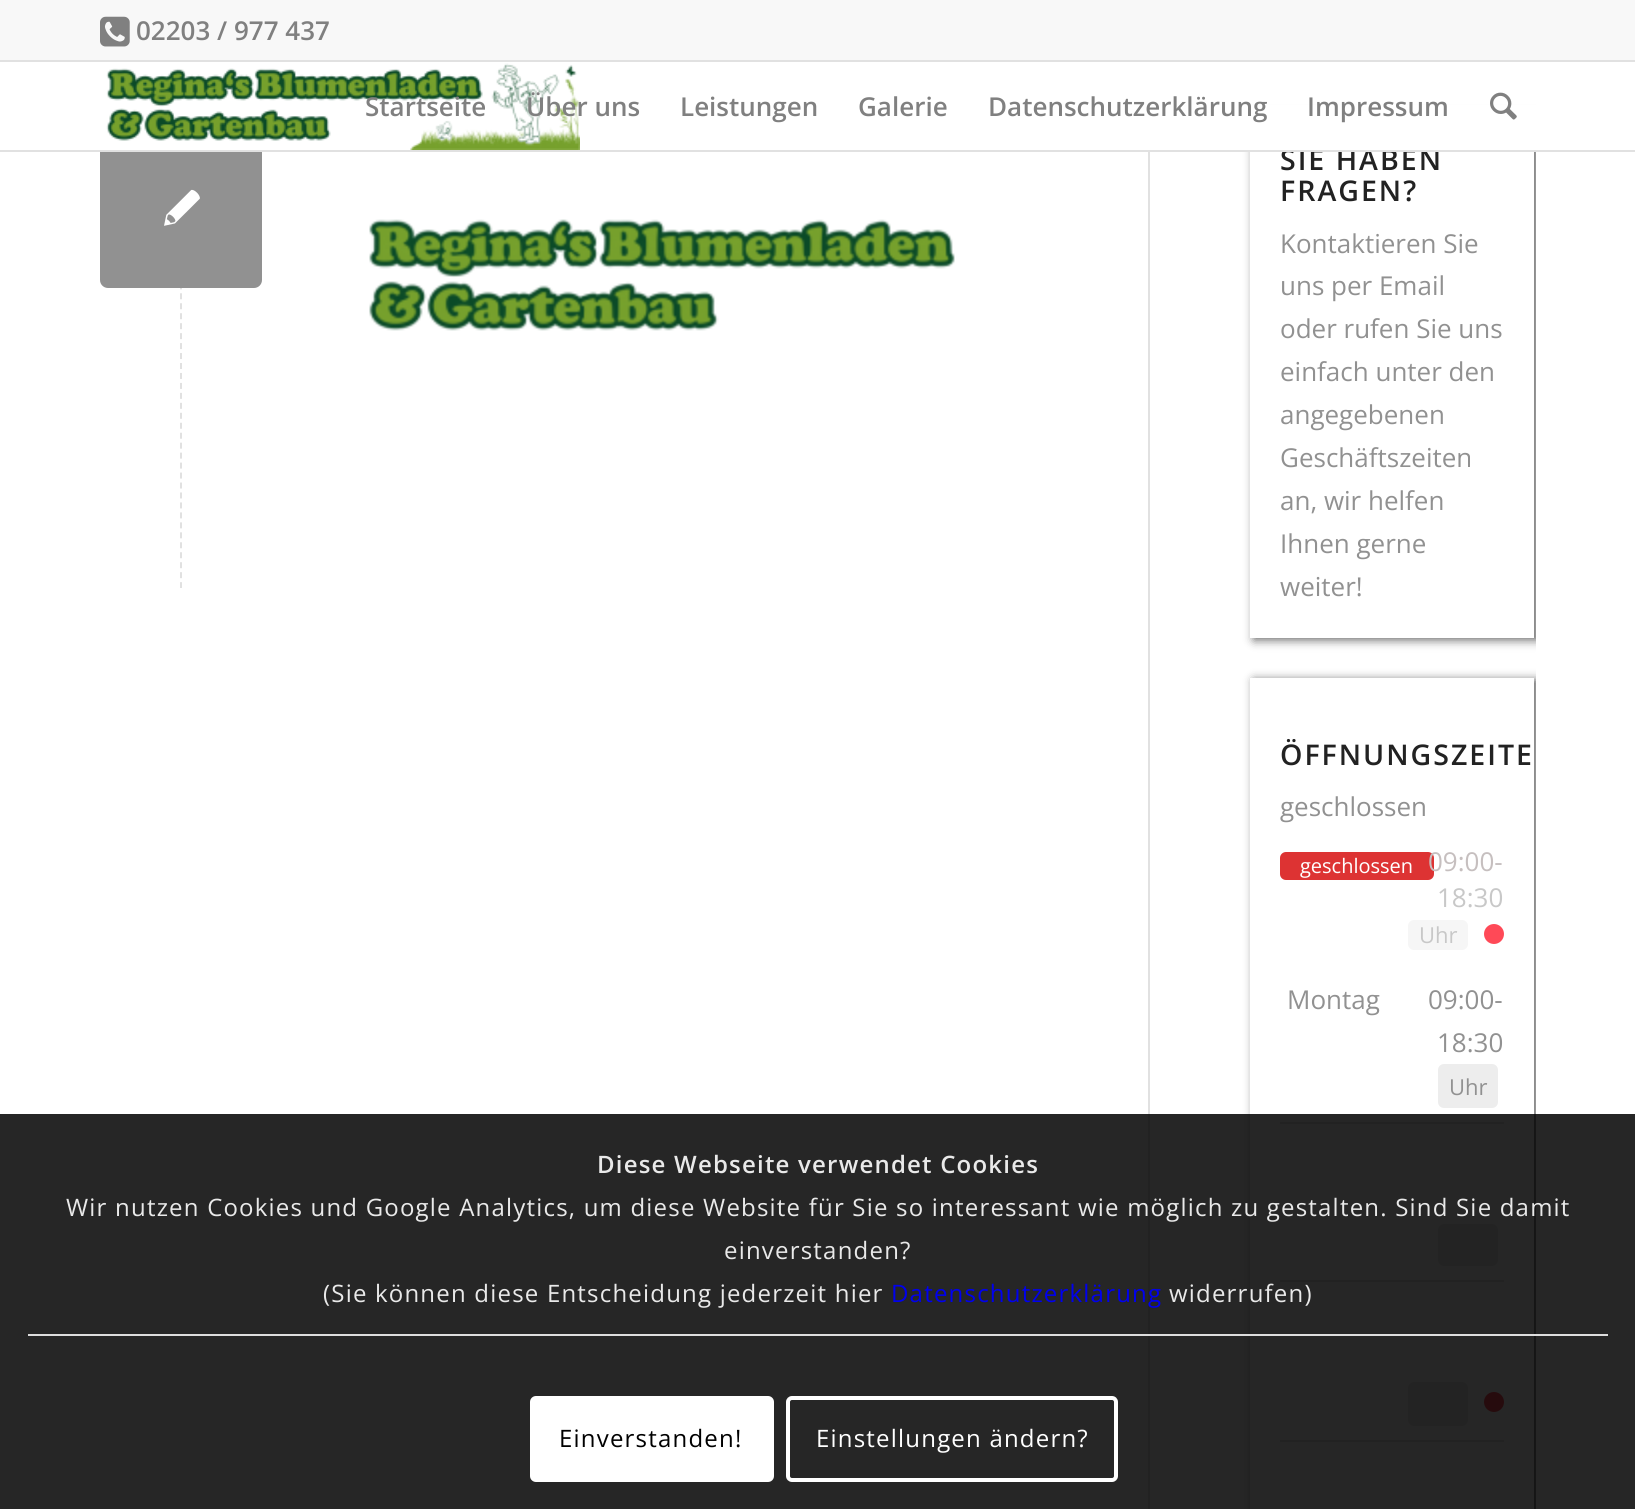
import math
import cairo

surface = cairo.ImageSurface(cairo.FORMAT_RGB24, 1635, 1509)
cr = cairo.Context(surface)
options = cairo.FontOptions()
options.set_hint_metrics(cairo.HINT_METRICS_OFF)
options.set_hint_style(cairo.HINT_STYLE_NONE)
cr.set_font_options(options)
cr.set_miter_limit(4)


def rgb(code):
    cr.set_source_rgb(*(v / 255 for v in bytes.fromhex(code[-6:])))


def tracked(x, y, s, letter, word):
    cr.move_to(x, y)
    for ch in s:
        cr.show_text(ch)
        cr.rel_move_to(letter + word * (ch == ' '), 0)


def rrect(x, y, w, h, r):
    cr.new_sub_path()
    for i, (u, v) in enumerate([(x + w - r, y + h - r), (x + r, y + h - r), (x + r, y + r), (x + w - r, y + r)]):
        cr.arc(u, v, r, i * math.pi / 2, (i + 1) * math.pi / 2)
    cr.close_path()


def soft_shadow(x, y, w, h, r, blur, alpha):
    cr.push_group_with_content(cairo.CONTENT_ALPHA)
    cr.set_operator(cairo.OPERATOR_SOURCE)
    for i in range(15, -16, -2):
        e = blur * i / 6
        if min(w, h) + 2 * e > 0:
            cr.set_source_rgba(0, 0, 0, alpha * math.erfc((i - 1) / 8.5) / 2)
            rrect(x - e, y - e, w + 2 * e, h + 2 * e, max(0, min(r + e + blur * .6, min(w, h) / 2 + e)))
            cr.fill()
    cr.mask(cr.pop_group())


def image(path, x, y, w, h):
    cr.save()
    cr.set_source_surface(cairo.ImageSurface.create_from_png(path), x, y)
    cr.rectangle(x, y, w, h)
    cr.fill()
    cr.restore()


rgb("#ffffff")
cr.paint()
rgb("#f8f8f8")
cr.rectangle(0, 0, 1635, 60)
cr.fill()
rgb("#e1e1e1")
cr.rectangle(0, 60, 1635, 2)
cr.fill()
image("img/1.png", 100, 16, 30, 31)
cr.new_path()
cr.move_to(181, 114)
cr.line_to(181, 588)
cr.set_dash([6, 3.96])
cr.stroke()
rgb("#919191")
rrect(100, 126, 162, 162, 8)
cr.fill()
image("img/4.png", 164, 189, 36, 37)
image("img/5.png", 369, 219, 586, 112)
rgb("#e1e1e1")
cr.rectangle(1148, 152, 2, 1357)
cr.fill()
cr.save()
cr.rectangle(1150, 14, 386, 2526)
cr.clip()
cr.set_fill_rule(cairo.FILL_RULE_EVEN_ODD)
cr.new_path()
cr.move_to(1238, 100)
cr.line_to(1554, 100)
cr.line_to(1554, 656)
cr.line_to(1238, 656)
cr.close_path()
cr.move_to(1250, 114)
cr.line_to(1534, 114)
cr.line_to(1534, 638)
cr.line_to(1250, 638)
cr.close_path()
cr.clip()
rgb("#323232")
soft_shadow(1254, 116, 284, 524, 0, 5, 0.75)
cr.restore()
cr.save()
cr.rectangle(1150, 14, 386, 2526)
cr.clip()
cr.set_fill_rule(cairo.FILL_RULE_EVEN_ODD)
cr.new_path()
cr.move_to(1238, 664)
cr.line_to(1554, 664)
cr.line_to(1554, 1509)
cr.line_to(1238, 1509)
cr.close_path()
cr.move_to(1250, 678)
cr.line_to(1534, 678)
cr.line_to(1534, 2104)
cr.line_to(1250, 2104)
cr.close_path()
cr.clip()
rgb("#323232")
soft_shadow(1254, 680, 284, 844, 0, 5, 0.75)
cr.restore()
rgb("#dd3333")
rrect(1280, 852, 154, 28, 6)
cr.fill()
rgb("#f6f6f6")
rrect(1408, 920, 60, 30, 6)
cr.fill()
rgb("#ff4957")
cr.arc(1494, 934, 10, 0, 2 * math.pi)
cr.fill()
rgb("#e6e6e6")
cr.rectangle(1280, 1122, 224, 2)
cr.fill()
rgb("#ededed")
rrect(1438, 1064, 60, 44, 6)
cr.fill()
rgb("#e6e6e6")
cr.rectangle(1280, 1280, 224, 2)
cr.fill()
rgb("#ededed")
rrect(1438, 1224, 60, 42, 6)
cr.fill()
rgb("#e6e6e6")
cr.rectangle(1280, 1440, 224, 2)
cr.fill()
rgb("#ededed")
rrect(1408, 1382, 60, 44, 6)
cr.fill()
rgb("#ff4957")
cr.arc(1494, 1402, 10, 0, 2 * math.pi)
cr.fill()
cr.set_source_rgba(0, 0, 0, 0.85)
cr.rectangle(0, 1114, 1635, 395)
cr.fill()
rgb("#dddddd")
cr.rectangle(28, 1334, 1580, 2)
cr.fill()
rgb("#ffffff")
rrect(530, 1396, 244, 86, 6)
cr.fill()
rrect(788, 1398, 328, 82, 4)
cr.set_line_width(4)
cr.set_dash([])
cr.stroke()
cr.select_font_face("Open Sans SemiBold")
cr.set_font_size(26)
rgb("#808080")
cr.move_to(136, 40)
cr.show_text("02203 / 977 437")
cr.set_font_size(28.5)
rgb("#222222")
tracked(1280, 170, "SIE HABEN", 2, 0)
rgb("#ffffff")
cr.rectangle(100, 105, 1436, 45)
cr.fill()
image("img/3.png", 1490, 92, 27, 28)
cr.set_font_size(26)
rgb("#808080")
for x, y, s in [
    (1307, 116, "Impressum"),
    (988, 116, "Datenschutzerklärung"),
    (858, 116, "Galerie"),
    (680, 116, "Leistungen"),
]:
    cr.move_to(x, y)
    cr.show_text(s)
image("img/2.png", 106, 63, 474, 87)
cr.move_to(526, 116)
cr.show_text("Über uns")
cr.move_to(365, 116)
cr.show_text("Startseite")
rgb("#e1e1e1")
cr.rectangle(0, 150, 1635, 2)
cr.fill()
cr.set_font_size(28.5)
rgb("#222222")
tracked(1280, 201, "FRAGEN?", 2, 0)
cr.select_font_face("Open Sans")
cr.set_font_size(26)
rgb("#919191")
for x, y, s in [
    (1280, 253, "Kontaktieren Sie"),
    (1280, 295, "uns per Email"),
    (1280, 338, "oder rufen Sie uns"),
    (1280, 381, "einfach unter den"),
    (1280, 424, "angegebenen"),
    (1280, 467, "Geschäftszeiten"),
    (1280, 510, "an, wir helfen"),
    (1280, 553, "Ihnen gerne"),
    (1280, 596, "weiter!"),
]:
    cr.move_to(x, y)
    cr.show_text(s)
cr.select_font_face("Open Sans SemiBold")
cr.set_font_size(28.5)
rgb("#222222")
tracked(1280, 765, "ÖFFNUNGSZEITE", 2, 0)
cr.select_font_face("Open Sans")
cr.set_font_size(26)
rgb("#919191")
cr.move_to(1280, 816)
cr.show_text("geschlossen")
cr.set_font_size(20)
rgb("#ffffff")
cr.move_to(1300, 873)
cr.show_text("geschlossen")
cr.set_font_size(26)
rgb("#c6bfbf")
cr.move_to(1428, 871)
cr.show_text("09:00-")
rgb("#c8c8c8")
cr.move_to(1437, 907)
cr.show_text("18:30")
cr.set_font_size(22)
cr.move_to(1419, 943)
cr.show_text("Uhr")
cr.set_font_size(26)
rgb("#919191")
for x, y, s in [
    (1287, 1009, "Montag"),
    (1428, 1009, "09:00-"),
    (1437, 1052, "18:30"),
]:
    cr.move_to(x, y)
    cr.show_text(s)
cr.set_font_size(22)
cr.move_to(1449, 1095)
cr.show_text("Uhr")
cr.select_font_face("Open Sans SemiBold")
cr.set_font_size(24)
rgb("#e9e9e9")
tracked(597, 1173, "Diese Webseite verwendet Cookies", 1.2, 0)
cr.select_font_face("Open Sans")
for x, y, s in [
    (66, 1216, "Wir nutzen Cookies und Google Analytics, um diese Website für Sie so interessant wie möglich zu gestalten. Sind Sie damit"),
    (724, 1259, "einverstanden?"),
    (323, 1302, "(Sie können diese Entscheidung jederzeit hier"),
]:
    tracked(x, y, s, 1.2, 0)
rgb("#0000ee")
tracked(891, 1302, "Datenschutzerklärung", 1.2, 0)
rgb("#e9e9e9")
tracked(1169, 1302, "widerrufen)", 1.2, 0)
rgb("#000000")
tracked(559, 1447, "Einverstanden!", 1.2, 0)
rgb("#ffffff")
tracked(816, 1447, "Einstellungen ändern?", 1.2, 0)
surface.write_to_png("page.png")
